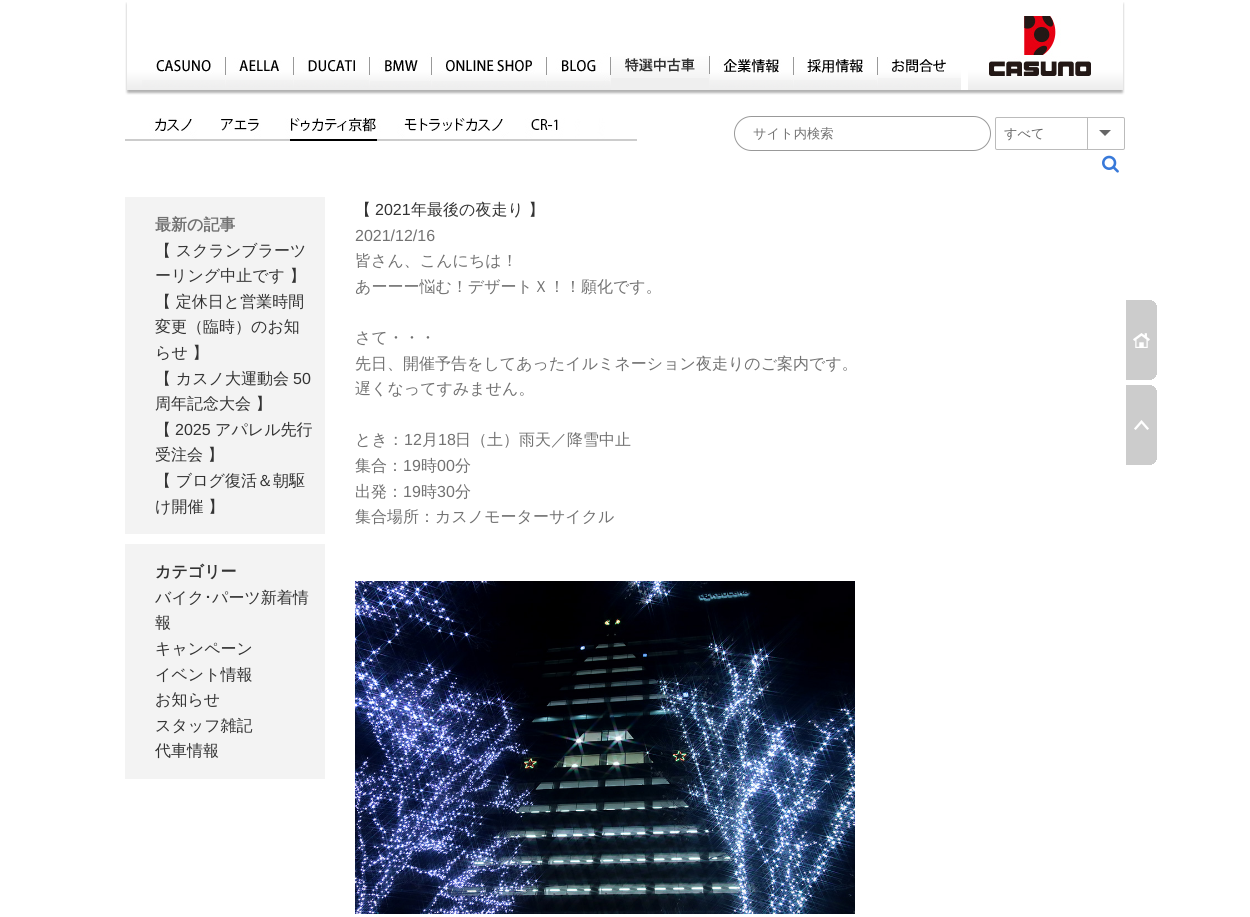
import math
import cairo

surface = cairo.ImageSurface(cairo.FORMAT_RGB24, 1250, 917)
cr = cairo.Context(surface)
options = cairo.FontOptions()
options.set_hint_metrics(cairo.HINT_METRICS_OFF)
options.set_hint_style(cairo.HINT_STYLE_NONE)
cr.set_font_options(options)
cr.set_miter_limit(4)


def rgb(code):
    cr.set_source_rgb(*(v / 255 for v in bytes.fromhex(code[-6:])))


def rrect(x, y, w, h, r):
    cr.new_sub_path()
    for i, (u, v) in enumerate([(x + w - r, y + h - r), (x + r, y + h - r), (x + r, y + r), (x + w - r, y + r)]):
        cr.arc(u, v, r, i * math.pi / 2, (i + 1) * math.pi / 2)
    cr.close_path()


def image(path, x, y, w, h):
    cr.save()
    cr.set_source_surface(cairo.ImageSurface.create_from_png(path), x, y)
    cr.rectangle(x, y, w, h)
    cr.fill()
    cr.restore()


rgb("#ffffff")
cr.paint()
image("img/1.png", 125, 2, 1000, 93)
image("img/2.png", 142, 53, 83, 27)
image("img/3.png", 226, 53, 67, 27)
image("img/4.png", 294, 53, 75, 27)
image("img/5.png", 370, 53, 61, 28)
image("img/6.png", 432, 53, 114, 28)
image("img/7.png", 547, 53, 63, 28)
image("img/8.png", 611, 53, 99, 25)
image("img/9.png", 710, 53, 83, 27)
image("img/10.png", 794, 53, 83, 27)
image("img/11.png", 878, 53, 83, 25)
image("img/12.png", 989, 16, 102, 61)
rrect(734.5, 116.5, 256, 34, 17)
rgb("#999999")
cr.set_line_width(1)
cr.stroke()
rrect(995.5, 117.5, 129, 32, 1.5)
rgb("#bbbbbb")
cr.stroke()
cr.rectangle(1087, 118, 1, 31)
cr.fill()
rgb("#666666")
cr.new_path()
cr.move_to(1099, 130)
cr.line_to(1111, 130)
cr.line_to(1105, 136)
cr.close_path()
cr.fill()
image("img/13.png", 1102, 155, 17, 18)
image("img/14.png", 125, 118, 512, 23)
for x, y, w, h, color in [
    (155, 139, 37, 2, "#cccccc"),
    (221, 139, 37, 2, "#cccccc"),
    (403, 139, 100, 2, "#cccccc"),
    (531, 139, 27, 2, "#cccccc"),
    (125, 197, 200, 337, "#f3f3f3"),
    (125, 544, 200, 235, "#f3f3f3"),
]:
    rgb(color)
    cr.rectangle(x, y, w, h)
    cr.fill()
image("img/15.png", 355, 581, 500, 333)
image("img/16.png", 1126, 300, 31, 80)
image("img/17.png", 1126, 385, 31, 80)
cr.select_font_face("WenQuanYi Zen Hei Medium")
cr.set_font_size(13.25)
rgb("#727272")
cr.move_to(753, 138)
cr.show_text("サイト内検索")
rgb("#666666")
cr.move_to(1004, 138)
cr.show_text("すべて")
cr.select_font_face("WenQuanYi Zen Hei", cairo.FONT_SLANT_NORMAL, cairo.FONT_WEIGHT_BOLD)
cr.set_font_size(16)
rgb("#727272")
cr.move_to(155, 230)
cr.show_text("最新の記事")
cr.select_font_face("WenQuanYi Zen Hei Medium")
rgb("#333333")
for x, y, s in [
    (155, 256, "【 スクランブラーツ"),
    (155, 281, "ーリング中止です 】"),
    (155, 307, "【 定休日と営業時間"),
    (155, 332, "変更（臨時）のお知"),
    (155, 358, "らせ 】"),
    (155, 384, "【 カスノ大運動会"),
]:
    cr.move_to(x, y)
    cr.show_text(s)
cr.select_font_face("Liberation Sans")
cr.move_to(293, 384)
cr.show_text("50")
cr.select_font_face("WenQuanYi Zen Hei Medium")
cr.move_to(155, 409)
cr.show_text("周年記念大会 】")
cr.move_to(155, 435)
cr.show_text("【")
cr.select_font_face("Liberation Sans")
cr.move_to(175, 435)
cr.show_text("2025")
cr.select_font_face("WenQuanYi Zen Hei Medium")
for x, y, s in [
    (215, 435, "アパレル先行"),
    (155, 460, "受注会 】"),
    (155, 486, "【 ブログ復活＆朝駆"),
    (155, 512, "け開催 】"),
]:
    cr.move_to(x, y)
    cr.show_text(s)
cr.select_font_face("WenQuanYi Zen Hei", cairo.FONT_SLANT_NORMAL, cairo.FONT_WEIGHT_BOLD)
cr.move_to(155, 577)
cr.show_text("カテゴリー")
cr.select_font_face("WenQuanYi Zen Hei Medium")
cr.move_to(155, 603)
cr.show_text("バイク")
cr.select_font_face("IPAPGothic")
cr.move_to(204, 603)
cr.show_text("･")
cr.select_font_face("WenQuanYi Zen Hei Medium")
for x, y, s in [
    (212, 603, "パーツ新着情"),
    (155, 628, "報"),
    (155, 654, "キャンペーン"),
    (155, 680, "イベント情報"),
    (155, 705, "お知らせ"),
    (155, 731, "スタッフ雑記"),
    (155, 756, "代車情報"),
    (355, 215, "【"),
]:
    cr.move_to(x, y)
    cr.show_text(s)
cr.select_font_face("Liberation Sans")
cr.move_to(375, 215)
cr.show_text("2021")
cr.select_font_face("WenQuanYi Zen Hei Medium")
cr.move_to(411, 215)
cr.show_text("年最後の夜走り 】")
cr.select_font_face("Liberation Sans")
rgb("#727272")
cr.move_to(355, 241)
cr.show_text("2021/12/16")
cr.select_font_face("WenQuanYi Zen Hei Medium")
for x, y, s in [
    (355, 266, "皆さん、こんにちは！"),
    (355, 292, "あーーー悩む！デザートＸ！！願化です。"),
    (355, 343, "さて・・・"),
    (355, 369, "先日、開催予告をしてあったイルミネーション夜走りのご案内です。"),
    (355, 394, "遅くなってすみません。"),
    (355, 445, "とき："),
]:
    cr.move_to(x, y)
    cr.show_text(s)
cr.select_font_face("Liberation Sans")
cr.move_to(404, 445)
cr.show_text("12")
cr.select_font_face("WenQuanYi Zen Hei Medium")
cr.move_to(422, 445)
cr.show_text("月")
cr.select_font_face("Liberation Sans")
cr.move_to(438, 445)
cr.show_text("18")
cr.select_font_face("WenQuanYi Zen Hei Medium")
cr.move_to(455, 445)
cr.show_text("日（土）雨天／降雪中止")
cr.move_to(355, 471)
cr.show_text("集合：")
cr.select_font_face("Liberation Sans")
cr.move_to(403, 471)
cr.show_text("19")
cr.select_font_face("WenQuanYi Zen Hei Medium")
cr.move_to(421, 471)
cr.show_text("時")
cr.select_font_face("Liberation Sans")
cr.move_to(437, 471)
cr.show_text("00")
cr.select_font_face("WenQuanYi Zen Hei Medium")
cr.move_to(455, 471)
cr.show_text("分")
cr.move_to(355, 497)
cr.show_text("出発：")
cr.select_font_face("Liberation Sans")
cr.move_to(403, 497)
cr.show_text("19")
cr.select_font_face("WenQuanYi Zen Hei Medium")
cr.move_to(421, 497)
cr.show_text("時")
cr.select_font_face("Liberation Sans")
cr.move_to(437, 497)
cr.show_text("30")
cr.select_font_face("WenQuanYi Zen Hei Medium")
cr.move_to(455, 497)
cr.show_text("分")
cr.move_to(355, 522)
cr.show_text("集合場所：カスノモーターサイクル")
surface.write_to_png("page.png")
